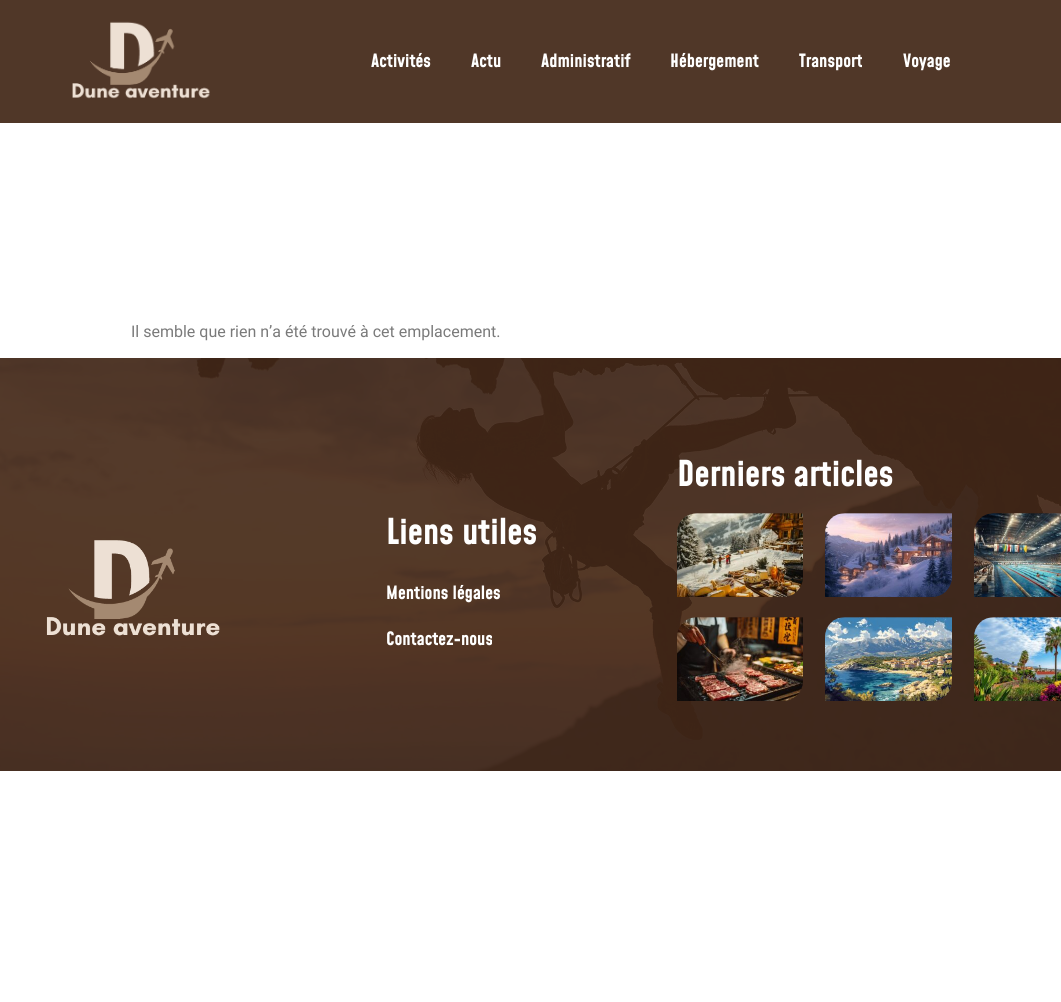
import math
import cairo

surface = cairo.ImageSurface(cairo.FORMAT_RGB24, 1061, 1002)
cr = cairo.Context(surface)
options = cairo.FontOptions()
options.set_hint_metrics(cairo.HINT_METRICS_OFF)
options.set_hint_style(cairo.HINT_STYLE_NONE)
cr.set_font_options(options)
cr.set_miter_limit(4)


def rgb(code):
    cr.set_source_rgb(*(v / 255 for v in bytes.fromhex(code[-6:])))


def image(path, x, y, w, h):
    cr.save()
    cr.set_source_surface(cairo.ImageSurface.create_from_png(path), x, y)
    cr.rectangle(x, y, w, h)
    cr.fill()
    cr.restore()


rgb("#ffffff")
cr.paint()
rgb("#503728")
cr.rectangle(0, 0, 1061, 123)
cr.fill()
image("img/1.png", 72, 21, 138, 78)
image("img/2.png", 0, 358, 1061, 413)
image("img/3.png", 677, 513, 126, 84)
image("img/4.png", 825, 513, 127, 84)
image("img/5.png", 974, 513, 87, 84)
image("img/6.png", 677, 617, 126, 84)
image("img/7.png", 825, 617, 127, 84)
image("img/8.png", 974, 617, 87, 84)
image("img/9.png", 46, 540, 174, 96)
cr.select_font_face("Mohave", cairo.FONT_SLANT_NORMAL, cairo.FONT_WEIGHT_BOLD)
cr.set_font_size(18)
rgb("#ffffff")
for x, y, s in [
    (371, 67, "Activités"),
    (471, 67, "Actu"),
    (541, 67, "Administratif"),
    (670, 67, "Hébergement"),
    (799, 67, "Transport"),
    (903, 67, "Voyage"),
]:
    cr.move_to(x, y)
    cr.show_text(s)
cr.select_font_face("Roboto")
cr.set_font_size(16)
rgb("#7a7a7a")
cr.move_to(131, 337)
cr.show_text("Il semble que rien n’a été trouvé à cet emplacement.")
cr.select_font_face("Mohave", cairo.FONT_SLANT_NORMAL, cairo.FONT_WEIGHT_BOLD)
cr.set_font_size(35)
rgb("#ffffff")
cr.move_to(677, 486)
cr.show_text("Derniers articles")
cr.move_to(386, 544)
cr.show_text("Liens utiles")
cr.set_font_size(18)
cr.move_to(386, 599)
cr.show_text("Mentions légales")
cr.move_to(386, 645)
cr.show_text("Contactez-nous")
surface.write_to_png("page.png")
